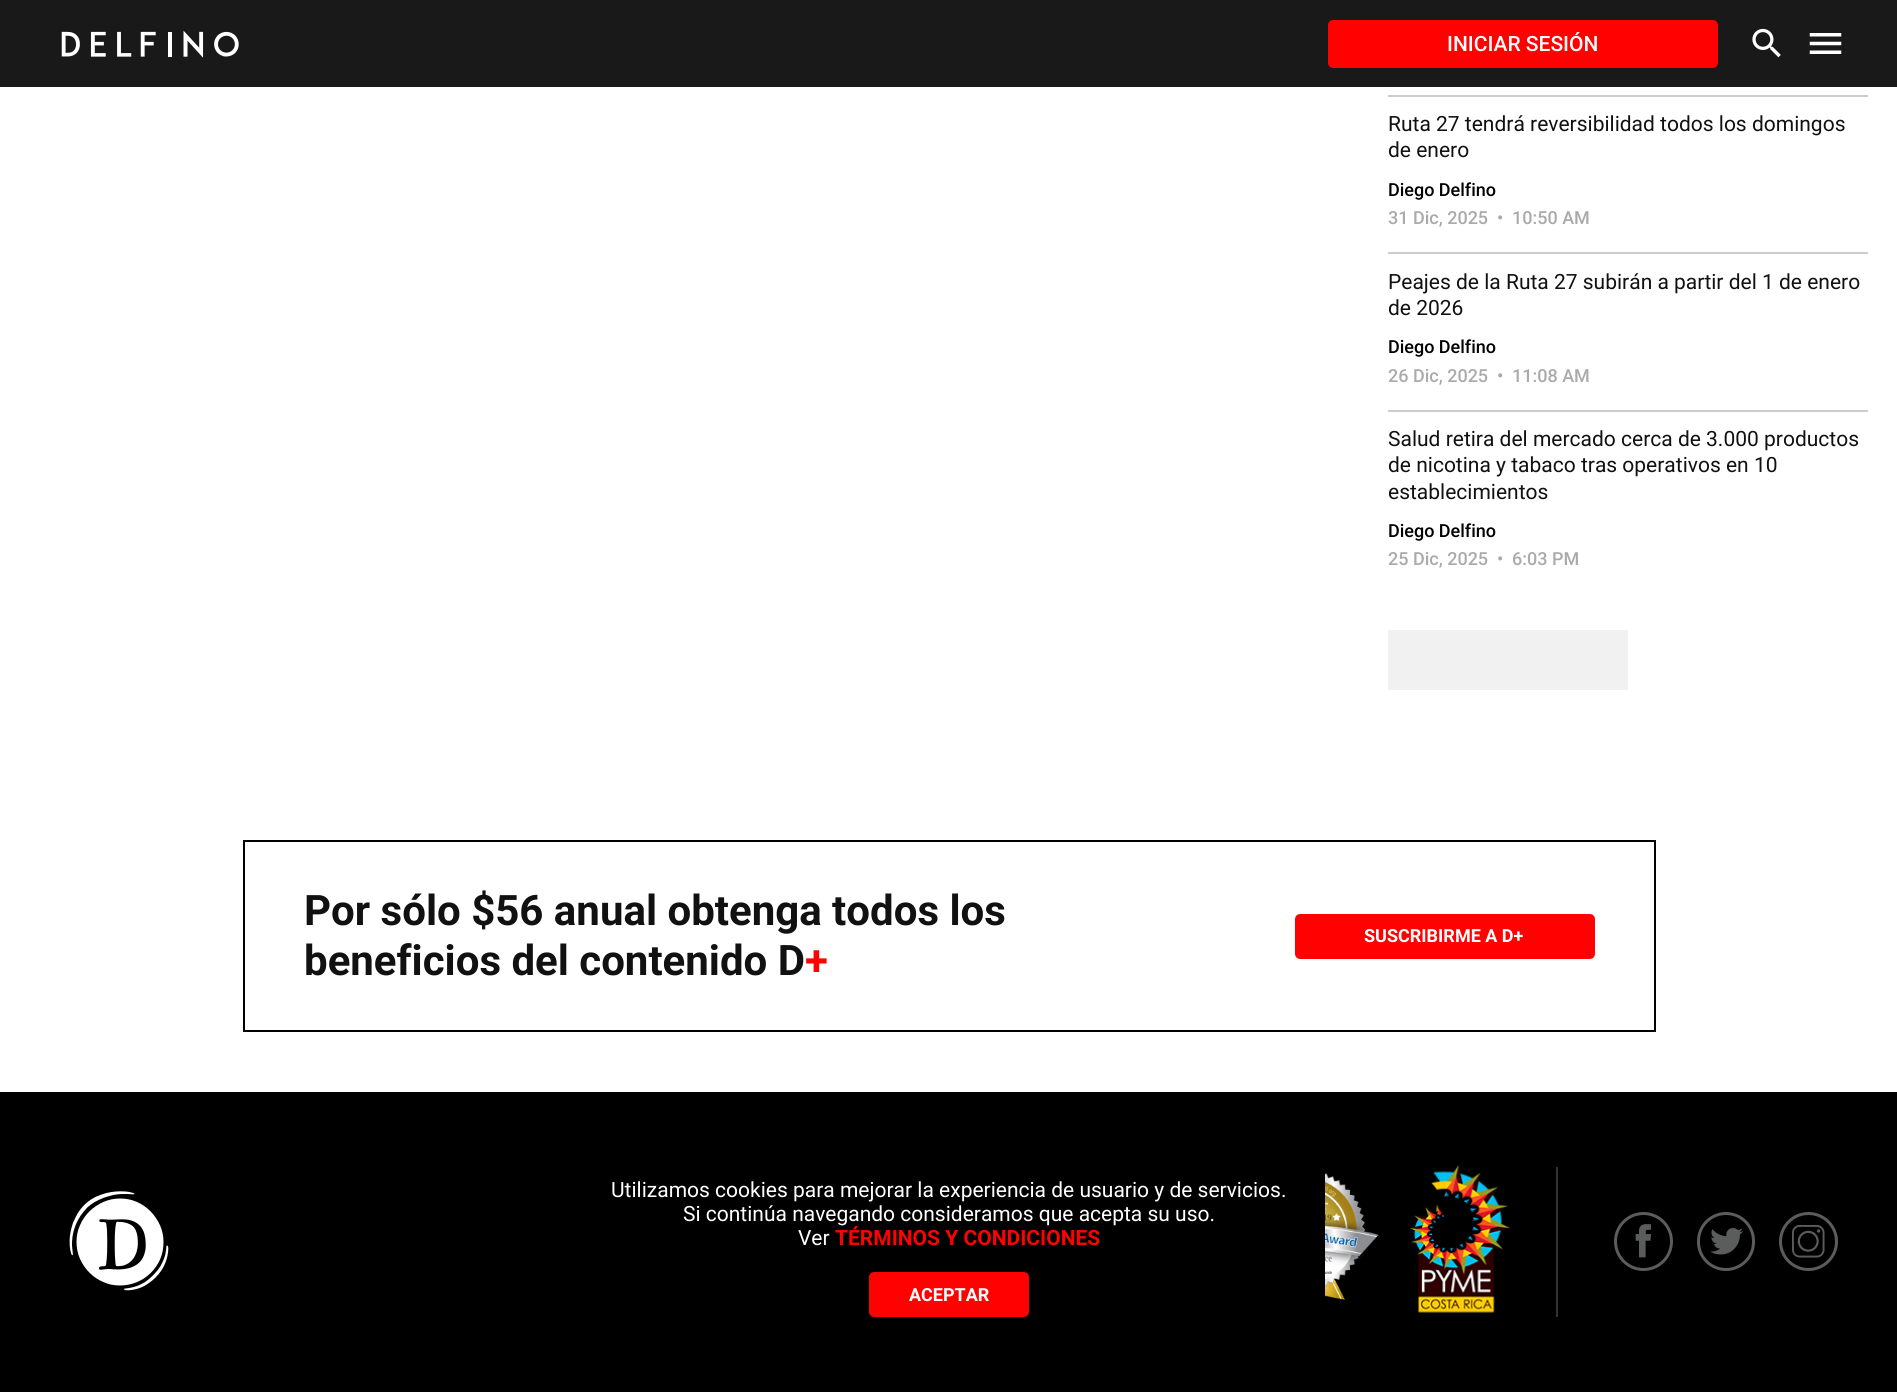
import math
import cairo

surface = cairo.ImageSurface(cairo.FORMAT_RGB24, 1897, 1392)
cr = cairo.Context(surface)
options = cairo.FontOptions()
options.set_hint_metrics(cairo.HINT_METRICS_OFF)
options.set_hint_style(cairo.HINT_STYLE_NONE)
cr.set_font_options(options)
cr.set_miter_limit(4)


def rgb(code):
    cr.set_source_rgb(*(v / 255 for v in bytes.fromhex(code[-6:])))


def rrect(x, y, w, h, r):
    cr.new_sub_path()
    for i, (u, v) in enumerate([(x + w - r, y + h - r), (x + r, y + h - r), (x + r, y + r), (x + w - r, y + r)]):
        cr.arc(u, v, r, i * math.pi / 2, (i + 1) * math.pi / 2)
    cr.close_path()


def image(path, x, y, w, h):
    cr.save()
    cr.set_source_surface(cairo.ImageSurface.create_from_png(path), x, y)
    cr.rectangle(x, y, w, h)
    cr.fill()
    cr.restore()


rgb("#ffffff")
cr.paint()
rgb("#191919")
cr.rectangle(0, 0, 1897, 87)
cr.fill()
image("img/1.png", 61, 30, 178, 28)
rgb("#ff0100")
rrect(1329.5, 21.5, 387, 45, 3.5)
cr.fill_preserve()
cr.set_line_width(3)
cr.stroke()
image("img/2.png", 1752, 28, 29, 30)
image("img/3.png", 1809, 33, 33, 21)
for x, y, w, h, color in [
    (1388, 95, 480, 2, "#cccccc"),
    (1388, 252, 480, 2, "#cccccc"),
    (1388, 410, 480, 2, "#cccccc"),
    (1388, 630, 240, 60, "#f1f1f1"),
]:
    rgb(color)
    cr.rectangle(x, y, w, h)
    cr.fill()
cr.rectangle(244, 841, 1411, 190)
rgb("#000000")
cr.set_line_width(2)
cr.stroke()
rgb("#ff0100")
rrect(1296.5, 915.5, 297, 42, 3.5)
cr.fill_preserve()
cr.set_line_width(3)
cr.stroke()
rgb("#000000")
cr.rectangle(0, 1092, 1897, 300)
cr.fill()
image("img/4.png", 69, 1191, 100, 100)
image("img/5.png", 1325, 1173, 54, 127)
image("img/6.png", 1410, 1165, 101, 148)
rgb("#333333")
cr.rectangle(1556, 1167, 2, 150)
cr.fill()
cr.arc(1643.5, 1241.5, 28, 0, 2 * math.pi)
rgb("#5b5c5c")
cr.stroke()
image("img/7.png", 1635, 1224, 16, 34)
rrect(1698.5, 1213.5, 55, 56, 27.5)
cr.stroke()
image("img/8.png", 1710, 1228, 33, 27)
cr.arc(1808.5, 1241.5, 28, 0, 2 * math.pi)
cr.stroke()
image("img/9.png", 1792, 1225, 33, 33)
rgb("#ff0100")
rrect(870.5, 1273.5, 157, 42, 3.5)
cr.fill_preserve()
cr.stroke()
cr.select_font_face("Roboto Medium")
cr.set_font_size(21)
rgb("#ffffff")
cr.move_to(1447, 51)
cr.show_text("INICIAR SESIÓN")
cr.select_font_face("Roboto")
rgb("#111111")
cr.move_to(1388, 131)
cr.show_text("Ruta 27 tendrá reversibilidad todos los domingos")
cr.move_to(1388, 157)
cr.show_text("de enero")
cr.select_font_face("Roboto Medium")
cr.set_font_size(18)
rgb("#000000")
cr.move_to(1388, 196)
cr.show_text("Diego Delfino")
rgb("#aaaaaa")
for x, y, s in [
    (1388, 224, "31 Dic, 2025"),
    (1497, 224, "•"),
    (1512, 224, "10:50 AM"),
]:
    cr.move_to(x, y)
    cr.show_text(s)
cr.select_font_face("Roboto")
cr.set_font_size(21)
rgb("#111111")
cr.move_to(1388, 289)
cr.show_text("Peajes de la Ruta 27 subirán a partir del 1 de enero")
cr.move_to(1388, 315)
cr.show_text("de 2026")
cr.select_font_face("Roboto Medium")
cr.set_font_size(18)
rgb("#000000")
cr.move_to(1388, 353)
cr.show_text("Diego Delfino")
rgb("#aaaaaa")
for x, y, s in [
    (1388, 382, "26 Dic, 2025"),
    (1497, 382, "•"),
    (1512, 382, "11:08 AM"),
]:
    cr.move_to(x, y)
    cr.show_text(s)
cr.select_font_face("Roboto")
cr.set_font_size(21)
rgb("#111111")
for x, y, s in [
    (1388, 446, "Salud retira del mercado cerca de 3.000 productos"),
    (1388, 472, "de nicotina y tabaco tras operativos en 10"),
    (1388, 499, "establecimientos"),
]:
    cr.move_to(x, y)
    cr.show_text(s)
cr.select_font_face("Roboto Medium")
cr.set_font_size(18)
rgb("#000000")
cr.move_to(1388, 537)
cr.show_text("Diego Delfino")
rgb("#aaaaaa")
for x, y, s in [
    (1388, 565, "25 Dic, 2025"),
    (1497, 565, "•"),
    (1512, 565, "6:03 PM"),
]:
    cr.move_to(x, y)
    cr.show_text(s)
cr.select_font_face("Roboto", cairo.FONT_SLANT_NORMAL, cairo.FONT_WEIGHT_BOLD)
cr.set_font_size(42)
rgb("#111111")
cr.move_to(304, 925)
cr.show_text("Por sólo $56 anual obtenga todos los")
cr.move_to(304, 975)
cr.show_text("beneficios del contenido D")
rgb("#ff0100")
cr.move_to(805, 975)
cr.show_text("+")
cr.set_font_size(18)
rgb("#ffffff")
cr.move_to(1364, 942)
cr.show_text("SUSCRIBIRME A D+")
cr.select_font_face("Roboto")
cr.set_font_size(21)
for x, y, s in [
    (611, 1197, "Utilizamos cookies para mejorar la experiencia de usuario y de servicios."),
    (683, 1221, "Si continúa navegando consideramos que acepta su uso."),
    (798, 1245, "Ver"),
]:
    cr.move_to(x, y)
    cr.show_text(s)
cr.select_font_face("Roboto", cairo.FONT_SLANT_NORMAL, cairo.FONT_WEIGHT_BOLD)
rgb("#ff0100")
cr.move_to(835, 1245)
cr.show_text("TÉRMINOS Y CONDICIONES")
cr.set_font_size(18)
rgb("#ffffff")
cr.move_to(909, 1301)
cr.show_text("ACEPTAR")
surface.write_to_png("page.png")
